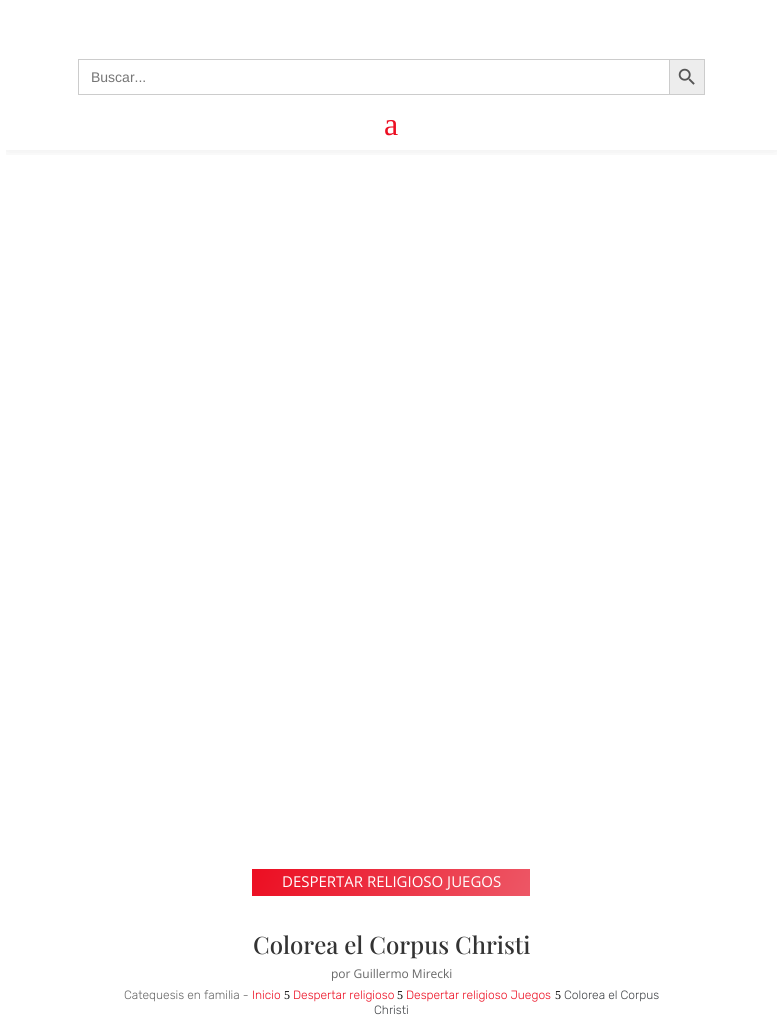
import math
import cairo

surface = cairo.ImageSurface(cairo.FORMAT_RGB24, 783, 1016)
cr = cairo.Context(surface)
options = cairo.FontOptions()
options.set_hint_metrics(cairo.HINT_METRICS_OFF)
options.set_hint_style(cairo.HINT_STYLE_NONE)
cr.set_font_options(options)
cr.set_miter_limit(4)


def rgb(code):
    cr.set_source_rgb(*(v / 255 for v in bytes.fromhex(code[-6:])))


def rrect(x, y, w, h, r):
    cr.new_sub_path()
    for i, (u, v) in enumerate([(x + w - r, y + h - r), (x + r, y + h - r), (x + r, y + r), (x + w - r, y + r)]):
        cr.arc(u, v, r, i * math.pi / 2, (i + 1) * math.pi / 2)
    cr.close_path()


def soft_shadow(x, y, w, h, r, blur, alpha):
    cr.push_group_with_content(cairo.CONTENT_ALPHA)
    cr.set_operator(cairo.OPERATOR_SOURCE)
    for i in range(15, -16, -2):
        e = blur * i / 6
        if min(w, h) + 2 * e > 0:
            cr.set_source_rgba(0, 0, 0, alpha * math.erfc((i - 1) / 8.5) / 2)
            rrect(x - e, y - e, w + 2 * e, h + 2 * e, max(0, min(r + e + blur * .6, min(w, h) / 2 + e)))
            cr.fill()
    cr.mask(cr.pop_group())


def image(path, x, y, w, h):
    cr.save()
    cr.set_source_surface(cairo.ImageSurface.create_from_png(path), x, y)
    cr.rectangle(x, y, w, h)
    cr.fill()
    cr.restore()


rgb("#ffffff")
cr.paint()
cr.save()
cr.rectangle(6, 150, 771, 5)
cr.clip()
rgb("#000000")
soft_shadow(6, 31, 771, 118, 0, 7.5, 0.1)
cr.restore()
for x, y, w, h, color in [
    (78, 59, 591, 1, "#cccccc"),
    (78, 94, 591, 1, "#cccccc"),
    (78, 59, 1, 36, "#cccccc"),
]:
    rgb(color)
    cr.rectangle(x, y, w, h)
    cr.fill()
rgb("#ededed")
cr.rectangle(669.5, 59.5, 35, 35)
cr.fill_preserve()
rgb("#cccccc")
cr.set_line_width(1)
cr.stroke()
image("img/1.png", 678, 68, 17, 17)
gradient = cairo.LinearGradient(269, 830, 514, 935)
gradient.add_color_stop_rgba(0, 0.925, 0.055, 0.133, 1)
gradient.add_color_stop_rgba(1, 0.929, 0.341, 0.4, 1)
cr.set_source(gradient)
cr.rectangle(252, 869, 278, 27)
cr.fill()
cr.select_font_face("Liberation Sans")
cr.set_font_size(14)
rgb("#757575")
cr.move_to(91, 82)
cr.show_text("Buscar...")
cr.select_font_face("Liberation Serif")
cr.set_font_size(32)
rgb("#ec0e22")
cr.move_to(384, 135)
cr.show_text("a")
cr.select_font_face("Open Sans")
cr.set_font_size(15)
rgb("#ffffff")
cr.move_to(282, 887)
cr.show_text("DESPERTAR RELIGIOSO JUEGOS")
cr.select_font_face("Playfair Display Medium")
cr.set_font_size(24)
rgb("#333333")
cr.move_to(253, 954)
cr.show_text("Colorea el Corpus Christi")
cr.select_font_face("Open Sans")
cr.set_font_size(12)
rgb("#666666")
cr.move_to(331, 978)
cr.show_text("por Guillermo Mirecki")
cr.select_font_face("Rubik Light")
cr.move_to(124, 999)
cr.show_text("Catequesis en familia -")
rgb("#ec0e22")
cr.move_to(252, 999)
cr.show_text("Inicio")
cr.select_font_face("Liberation Serif")
rgb("#010101")
cr.move_to(284, 999)
cr.show_text("5")
cr.select_font_face("Rubik Light")
rgb("#ec0e22")
cr.move_to(293, 999)
cr.show_text("Despertar religioso")
cr.select_font_face("Liberation Serif")
rgb("#010101")
cr.move_to(397, 999)
cr.show_text("5")
cr.select_font_face("Rubik Light")
rgb("#ec0e22")
cr.move_to(406, 999)
cr.show_text("Despertar religioso Juegos")
cr.select_font_face("Liberation Serif")
rgb("#010101")
cr.move_to(555, 999)
cr.show_text("5")
cr.select_font_face("Rubik Light")
rgb("#404347")
cr.move_to(564, 999)
cr.show_text("Colorea el Corpus")
cr.move_to(374, 1014)
cr.show_text("Christi")
surface.write_to_png("page.png")
